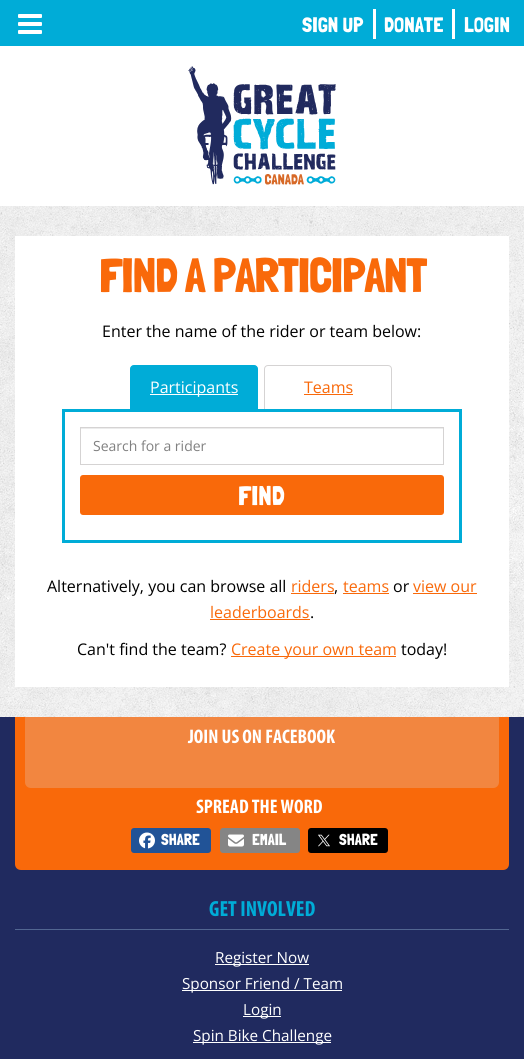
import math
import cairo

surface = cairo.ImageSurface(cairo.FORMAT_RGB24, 524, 1059)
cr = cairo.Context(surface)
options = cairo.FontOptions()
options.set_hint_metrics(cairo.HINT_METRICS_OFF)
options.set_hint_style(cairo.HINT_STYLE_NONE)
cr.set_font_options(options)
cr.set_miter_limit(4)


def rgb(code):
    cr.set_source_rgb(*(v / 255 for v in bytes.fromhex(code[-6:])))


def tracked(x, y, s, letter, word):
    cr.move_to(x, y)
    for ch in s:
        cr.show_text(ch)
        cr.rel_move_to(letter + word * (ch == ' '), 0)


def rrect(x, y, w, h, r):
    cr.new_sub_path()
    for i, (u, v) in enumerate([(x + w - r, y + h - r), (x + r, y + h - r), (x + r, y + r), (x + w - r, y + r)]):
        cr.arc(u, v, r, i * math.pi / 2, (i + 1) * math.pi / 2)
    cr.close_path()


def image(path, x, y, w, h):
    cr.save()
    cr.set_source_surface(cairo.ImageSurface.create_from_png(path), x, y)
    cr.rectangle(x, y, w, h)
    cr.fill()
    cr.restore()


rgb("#ffffff")
cr.paint()
image("img/1.png", 0, 206, 524, 511)
rgb("#00acd7")
cr.rectangle(0, 0, 524, 46)
cr.fill()
rgb("#ffffff")
rrect(18, 14, 24, 4, 1)
cr.fill()
rrect(18, 22, 24, 4, 1)
cr.fill()
rrect(18, 30, 24, 4, 1)
cr.fill()
image("img/2.png", 188, 66, 148, 119)
for x, y, w, h, color in [
    (373, 9, 3, 30, "#ffffff"),
    (452, 9, 3, 30, "#ffffff"),
    (15, 236, 494, 451, "#ffffff"),
]:
    rgb(color)
    cr.rectangle(x, y, w, h)
    cr.fill()
rgb("#00acd7")
cr.new_path()
cr.move_to(134, 365.5)
cr.line_to(254, 365.5)
cr.curve_to(256, 365.5, 257.5, 367, 257.5, 369)
cr.line_to(257.5, 409.5)
cr.line_to(130.5, 409.5)
cr.line_to(130.5, 369)
cr.curve_to(130.5, 367, 132, 365.5, 134, 365.5)
cr.close_path()
cr.fill_preserve()
cr.set_line_width(1)
cr.stroke()
rgb("#ffffff")
cr.rectangle(150, 394, 88, 1)
cr.fill()
cr.new_path()
cr.move_to(268, 365.5)
cr.line_to(388, 365.5)
cr.curve_to(390, 365.5, 391.5, 367, 391.5, 369)
cr.line_to(391.5, 409.5)
cr.line_to(264.5, 409.5)
cr.line_to(264.5, 369)
cr.curve_to(264.5, 367, 266, 365.5, 268, 365.5)
cr.close_path()
rgb("#d5d3d3")
cr.stroke()
rgb("#f9690a")
cr.rectangle(304, 394, 49, 1)
cr.fill()
cr.rectangle(63.5, 410.5, 397, 131)
rgb("#00acd7")
cr.set_line_width(3)
cr.stroke()
rgb("#ececec")
cr.rectangle(81, 428, 362, 1)
cr.fill()
cr.rectangle(80.5, 427.5, 363, 37)
rgb("#d5d3d3")
cr.set_line_width(1)
cr.stroke()
rgb("#f9690a")
rrect(80, 475, 364, 40, 3)
cr.fill()
for x, y, w, h, color in [
    (291, 593, 43, 1, "#f9690a"),
    (343, 593, 46, 1, "#f9690a"),
    (413, 593, 64, 1, "#f9690a"),
    (210, 619, 100, 1, "#f9690a"),
    (231, 656, 165, 1, "#f9690a"),
    (0, 717, 524, 342, "#202a5f"),
]:
    rgb(color)
    cr.rectangle(x, y, w, h)
    cr.fill()
rgb("#f9690a")
cr.new_path()
cr.move_to(15, 717)
cr.line_to(509, 717)
cr.line_to(509, 864)
cr.curve_to(509, 867.5, 506.5, 870, 503, 870)
cr.line_to(21, 870)
cr.curve_to(17.5, 870, 15, 867.5, 15, 864)
cr.close_path()
cr.fill()
rgb("#f28640")
cr.new_path()
cr.move_to(25, 717)
cr.line_to(499, 717)
cr.line_to(499, 782)
cr.curve_to(499, 785.5, 496.5, 788, 493, 788)
cr.line_to(31, 788)
cr.curve_to(27.5, 788, 25, 785.5, 25, 782)
cr.close_path()
cr.fill()
rgb("#215397")
rrect(131, 828, 80, 25, 3)
cr.fill()
image("img/3.png", 139, 832, 16, 17)
rgb("#858585")
rrect(220, 828, 80, 25, 3)
cr.fill()
image("img/4.png", 228, 834, 16, 13)
rgb("#000000")
rrect(308, 828, 80, 25, 3)
cr.fill()
image("img/5.png", 318, 834, 12, 13)
for x, y, w, h, color in [
    (15, 929, 494, 1, "#526691"),
    (215, 964, 94, 1, "#ffffff"),
    (182, 990, 160, 1, "#ffffff"),
    (243, 1016, 38, 1, "#ffffff"),
    (193, 1042, 138, 1, "#ffffff"),
]:
    rgb(color)
    cr.rectangle(x, y, w, h)
    cr.fill()
cr.select_font_face("Londrina Solid")
cr.set_font_size(21)
for x, y, s in [
    (302, 32, "SIGN UP"),
    (384, 32, "DONATE"),
    (464, 32, "LOGIN"),
]:
    cr.move_to(x, y)
    cr.show_text(s)
cr.set_font_size(48)
rgb("#f9690a")
tracked(99, 292, "FIND A PARTICIPANT", -1.4, 0)
cr.select_font_face("Open Sans")
cr.set_font_size(16)
rgb("#000000")
cr.move_to(102, 337)
cr.show_text("Enter the name of the rider or team below:")
rgb("#ffffff")
cr.move_to(150, 393)
cr.show_text("Participants")
rgb("#f9690a")
cr.move_to(304, 393)
cr.show_text("Teams")
cr.set_font_size(14)
rgb("#808080")
cr.move_to(93, 451)
cr.show_text("Search for a rider")
cr.select_font_face("Londrina Solid")
cr.set_font_size(27)
rgb("#ffffff")
cr.move_to(238, 505)
cr.show_text("FIND")
cr.select_font_face("Open Sans")
cr.set_font_size(16)
rgb("#000000")
cr.move_to(47, 592)
cr.show_text("Alternatively, you can browse all")
rgb("#f9690a")
cr.move_to(291, 592)
cr.show_text("riders")
rgb("#000000")
cr.move_to(334, 592)
cr.show_text(",")
rgb("#f9690a")
cr.move_to(343, 592)
cr.show_text("teams")
rgb("#000000")
cr.move_to(393, 592)
cr.show_text("or")
rgb("#f9690a")
cr.move_to(413, 592)
cr.show_text("view our")
cr.move_to(210, 618)
cr.show_text("leaderboards")
rgb("#000000")
cr.move_to(310, 618)
cr.show_text(".")
cr.move_to(77, 655)
cr.show_text("Can't find the team?")
rgb("#f9690a")
cr.move_to(231, 655)
cr.show_text("Create your own team")
rgb("#000000")
cr.move_to(401, 655)
cr.show_text("today!")
cr.select_font_face("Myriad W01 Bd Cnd", cairo.FONT_SLANT_NORMAL, cairo.FONT_WEIGHT_BOLD)
cr.set_font_size(19.75)
rgb("#ffffff")
cr.move_to(188, 743)
cr.show_text("JOIN US ON FACEBOOK")
cr.move_to(196, 813)
cr.show_text("SPREAD THE WORD")
cr.select_font_face("Londrina Solid")
cr.set_font_size(16)
for x, y, s in [
    (161, 845, "SHARE"),
    (252, 845, "EMAIL"),
    (339, 845, "SHARE"),
]:
    cr.move_to(x, y)
    cr.show_text(s)
cr.select_font_face("Myriad W01 Bd Cnd", cairo.FONT_SLANT_NORMAL, cairo.FONT_WEIGHT_BOLD)
cr.set_font_size(22)
rgb("#00acd7")
cr.move_to(209, 916)
cr.show_text("GET INVOLVED")
cr.select_font_face("Open Sans")
cr.set_font_size(15.25)
rgb("#ffffff")
for x, y, s in [
    (215, 963, "Register Now"),
    (182, 989, "Sponsor Friend / Team"),
    (243, 1015, "Login"),
    (193, 1041, "Spin Bike Challenge"),
]:
    cr.move_to(x, y)
    cr.show_text(s)
surface.write_to_png("page.png")
